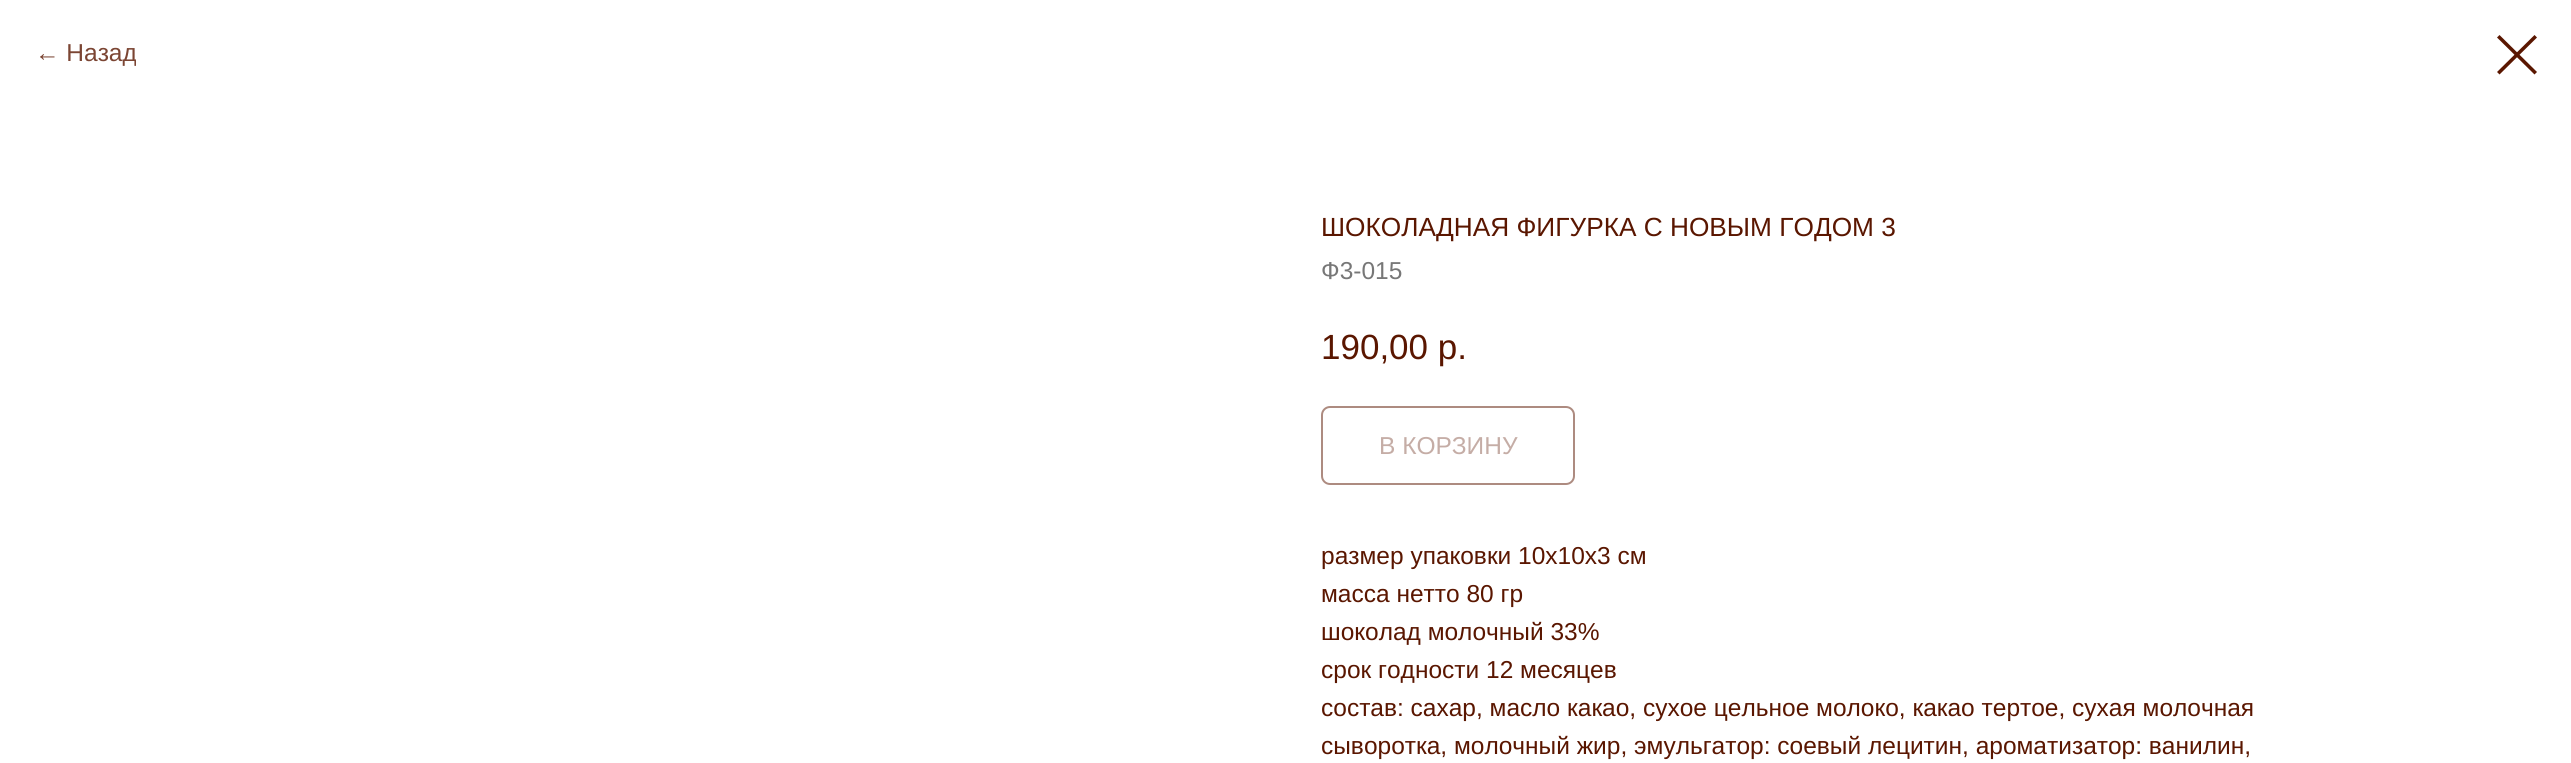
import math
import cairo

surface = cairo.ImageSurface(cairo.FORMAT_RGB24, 2571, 763)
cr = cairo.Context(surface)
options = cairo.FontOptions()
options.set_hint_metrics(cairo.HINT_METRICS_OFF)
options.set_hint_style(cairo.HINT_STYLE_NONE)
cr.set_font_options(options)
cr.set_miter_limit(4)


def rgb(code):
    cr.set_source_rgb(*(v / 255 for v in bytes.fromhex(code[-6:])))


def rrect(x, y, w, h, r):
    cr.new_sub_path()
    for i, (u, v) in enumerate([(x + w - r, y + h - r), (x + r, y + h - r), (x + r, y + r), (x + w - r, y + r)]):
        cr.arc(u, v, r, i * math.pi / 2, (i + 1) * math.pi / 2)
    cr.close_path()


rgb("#ffffff")
cr.paint()
rgb("#5a1600")
cr.set_fill_rule(cairo.FILL_RULE_EVEN_ODD)
cr.new_path()
cr.move_to(2497, 37.5)
cr.line_to(2499.5, 35)
cr.line_to(2537, 72)
cr.line_to(2534.5, 74.5)
cr.close_path()
cr.fill()
cr.new_path()
cr.move_to(2534.5, 35)
cr.line_to(2537, 37.5)
cr.line_to(2499.5, 74.5)
cr.line_to(2497, 72)
cr.close_path()
cr.fill()
rrect(1322, 407, 252, 77, 8)
rgb("#ad8b80")
cr.stroke()
cr.select_font_face("Liberation Sans")
cr.set_font_size(24.5)
rgb("#7b4533")
cr.move_to(35, 61)
cr.show_text("← Назад")
cr.set_font_size(26.25)
rgb("#5a1600")
cr.move_to(1321, 236)
cr.show_text("ШОКОЛАДНАЯ ФИГУРКА С НОВЫМ ГОДОМ 3")
cr.set_font_size(24.5)
rgb("#777777")
cr.move_to(1321, 279)
cr.show_text("Ф3-015")
cr.set_font_size(35)
rgb("#5a1600")
cr.move_to(1321, 359)
cr.show_text("190,00 р.")
cr.set_font_size(24.5)
rgb("#c5ada6")
cr.move_to(1379, 454)
cr.show_text("В КОРЗИНУ")
rgb("#5a1600")
for x, y, s in [
    (1321, 564, "размер упаковки 10х10х3 см"),
    (1321, 602, "масса нетто 80 гр"),
    (1321, 640, "шоколад молочный 33%"),
    (1321, 678, "срок годности 12 месяцев"),
    (1321, 716, "состав: сахар, масло какао, сухое цельное молоко, какао тертое, сухая молочная"),
    (1321, 754, "сыворотка, молочный жир, эмульгатор: соевый лецитин, ароматизатор: ванилин,"),
]:
    cr.move_to(x, y)
    cr.show_text(s)
surface.write_to_png("page.png")
